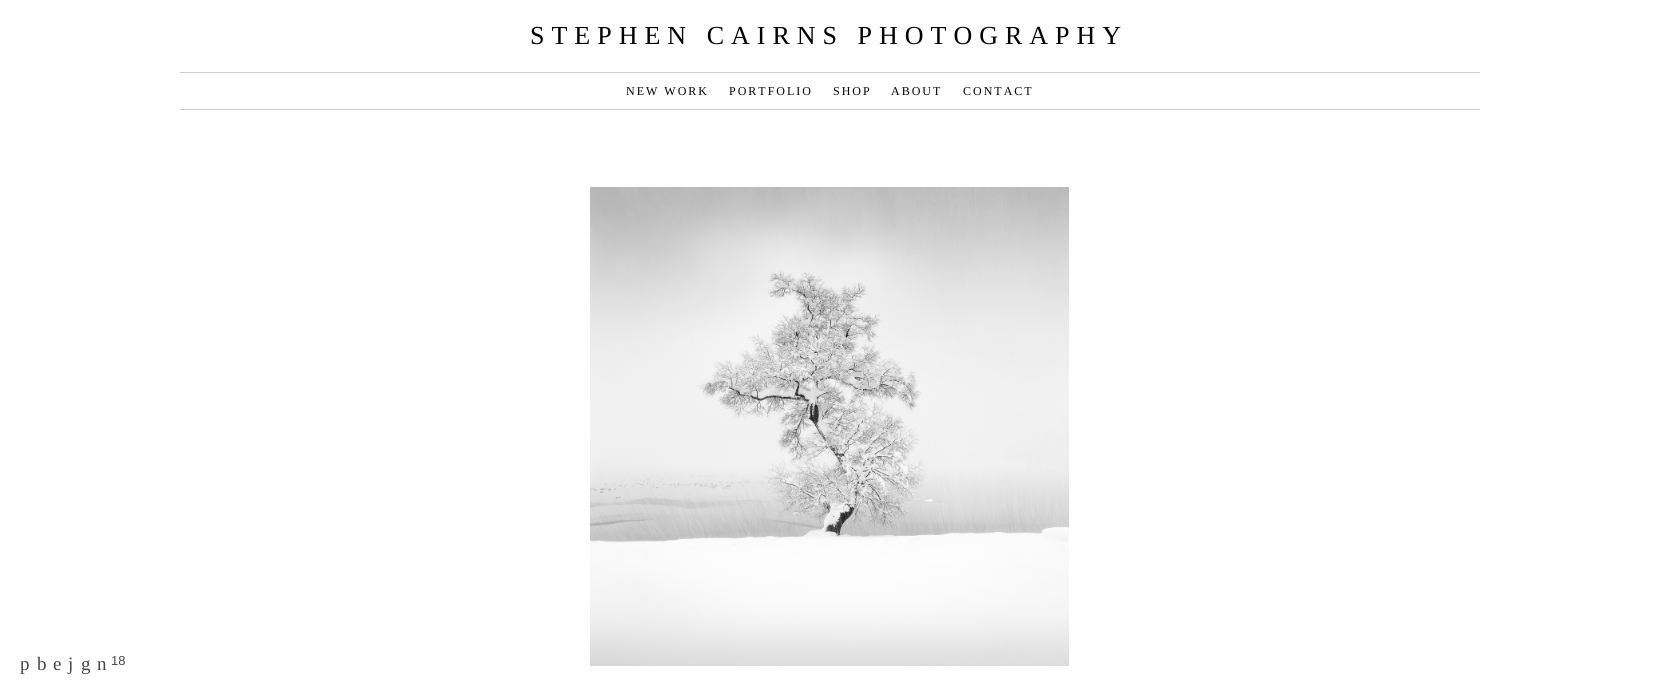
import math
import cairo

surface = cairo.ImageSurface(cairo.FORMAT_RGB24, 1659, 685)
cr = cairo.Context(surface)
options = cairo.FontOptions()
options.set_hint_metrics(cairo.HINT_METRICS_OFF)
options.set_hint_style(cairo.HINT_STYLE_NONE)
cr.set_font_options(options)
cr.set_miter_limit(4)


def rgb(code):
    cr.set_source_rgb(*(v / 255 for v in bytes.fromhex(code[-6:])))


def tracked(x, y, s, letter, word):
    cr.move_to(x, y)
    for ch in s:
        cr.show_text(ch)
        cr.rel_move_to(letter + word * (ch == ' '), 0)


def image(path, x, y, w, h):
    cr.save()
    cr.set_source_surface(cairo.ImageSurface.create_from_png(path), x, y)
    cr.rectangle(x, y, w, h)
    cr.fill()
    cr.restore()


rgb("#ffffff")
cr.paint()
rgb("#cccccc")
cr.rectangle(180, 72, 1300, 1)
cr.fill()
cr.rectangle(180, 109, 1300, 1)
cr.fill()
image("img/1.png", 590, 187, 479, 479)
cr.select_font_face("Liberation Serif")
cr.set_font_size(26)
rgb("#000000")
tracked(530, 44, "STEPHEN CAIRNS PHOTOGRAPHY", 7, 0)
cr.set_font_size(12)
for x, y, s in [
    (626, 95, "NEW WORK"),
    (729, 95, "PORTFOLIO"),
    (833, 95, "SHOP"),
    (891, 95, "ABOUT"),
    (963, 95, "CONTACT"),
]:
    tracked(x, y, s, 2, 0)
cr.set_font_size(19)
rgb("#474747")
for x, y, s in [
    (20, 670, "p"),
    (37, 670, "b"),
    (53, 670, "e"),
    (68, 670, "j"),
    (81, 670, "g"),
    (97, 670, "n"),
]:
    cr.move_to(x, y)
    cr.show_text(s)
cr.select_font_face("Liberation Sans")
cr.set_font_size(13)
cr.move_to(111, 665)
cr.show_text("18")
surface.write_to_png("page.png")
